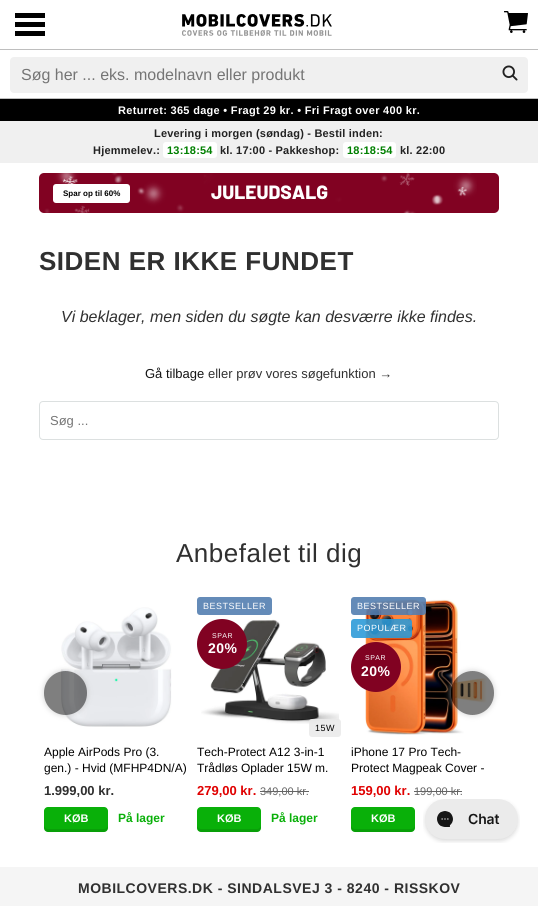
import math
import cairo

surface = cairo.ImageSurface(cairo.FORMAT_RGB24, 538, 906)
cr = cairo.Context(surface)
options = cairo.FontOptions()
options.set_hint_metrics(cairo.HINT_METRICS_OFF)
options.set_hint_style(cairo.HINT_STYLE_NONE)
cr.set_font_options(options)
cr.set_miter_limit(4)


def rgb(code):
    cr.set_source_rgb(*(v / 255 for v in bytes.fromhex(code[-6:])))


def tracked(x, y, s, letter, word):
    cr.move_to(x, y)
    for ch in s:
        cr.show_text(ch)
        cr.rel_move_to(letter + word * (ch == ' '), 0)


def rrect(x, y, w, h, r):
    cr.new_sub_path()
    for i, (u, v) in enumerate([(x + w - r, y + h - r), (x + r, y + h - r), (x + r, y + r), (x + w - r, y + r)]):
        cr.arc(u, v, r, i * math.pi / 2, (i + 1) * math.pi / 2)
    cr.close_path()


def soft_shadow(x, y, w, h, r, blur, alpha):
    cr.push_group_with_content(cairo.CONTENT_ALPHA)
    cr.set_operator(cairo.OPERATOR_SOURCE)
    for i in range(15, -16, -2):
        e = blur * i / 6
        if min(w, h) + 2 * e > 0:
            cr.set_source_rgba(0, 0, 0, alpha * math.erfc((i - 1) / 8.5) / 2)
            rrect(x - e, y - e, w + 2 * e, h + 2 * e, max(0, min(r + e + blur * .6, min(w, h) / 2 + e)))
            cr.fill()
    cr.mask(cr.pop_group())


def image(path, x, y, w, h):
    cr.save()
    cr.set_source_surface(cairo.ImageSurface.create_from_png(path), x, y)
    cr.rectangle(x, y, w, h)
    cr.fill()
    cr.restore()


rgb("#ffffff")
cr.paint()
rgb("#bebebe")
cr.rectangle(0, 49, 538, 1)
cr.fill()
image("img/1.png", 15, 13, 30, 23)
image("img/2.png", 182, 14, 150, 22)
image("img/3.png", 504, 11, 24, 22)
cr.rectangle(0, 98, 538, 1)
cr.fill()
rgb("#f0f0f0")
rrect(10, 57, 518, 36, 4)
cr.fill()
image("img/4.png", 502, 65, 16, 16)
rgb("#810222")
rrect(39, 173, 460, 40, 5)
cr.fill()
image("img/5.png", 44, 173, 433, 40)
cr.save()
rrect(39, 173, 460, 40, 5)
cr.clip()
rgb("#810222")
soft_shadow(181, 150, 177, 86, 43, 10, 1)
cr.restore()
rgb("#000000")
cr.rectangle(0, 99, 538, 22)
cr.fill()
rgb("#f0f0f0")
cr.rectangle(0, 121, 538, 42)
cr.fill()
rgb("#ffffff")
rrect(163, 142, 54, 16, 3)
cr.fill()
rrect(343, 142, 53, 16, 3)
cr.fill()
rrect(53, 184, 77, 19, 3)
cr.fill()
rrect(39.5, 401.5, 459, 38, 3.5)
rgb("#dce0e0")
cr.set_line_width(1)
cr.stroke()
image("img/6.png", 61, 607, 111, 120)
rgb("#09b009")
rrect(44, 807, 64, 25, 4)
cr.fill()
cr.set_source_rgba(0, 0, 0, 0.1)
cr.new_path()
cr.move_to(44, 825)
cr.curve_to(44, 834, 48, 832, 57, 832)
cr.line_to(95, 832)
cr.curve_to(104, 832, 108, 834, 108, 825)
cr.curve_to(108, 827, 106, 829, 104, 829)
cr.line_to(48, 829)
cr.curve_to(46, 829, 44, 827, 44, 825)
cr.close_path()
cr.fill()
rgb("#648bb8")
rrect(197, 597, 75, 18, 3)
cr.fill()
image("img/7.png", 201, 619, 138, 105)
rgb("#810222")
cr.arc(222, 644, 25, 0, 2 * math.pi)
cr.fill()
cr.set_source_rgba(0.914, 0.914, 0.914, 0.89)
rrect(309, 719, 32, 18, 3)
cr.fill()
rgb("#646464")
cr.rectangle(260, 791, 49, 1)
cr.fill()
rgb("#09b009")
rrect(197, 807, 64, 25, 4)
cr.fill()
cr.set_source_rgba(0, 0, 0, 0.1)
cr.new_path()
cr.move_to(197, 825)
cr.curve_to(197, 834, 201, 832, 210, 832)
cr.line_to(248, 832)
cr.curve_to(257, 832, 261, 834, 261, 825)
cr.curve_to(261, 827, 259, 829, 257, 829)
cr.line_to(201, 829)
cr.curve_to(199, 829, 197, 827, 197, 825)
cr.close_path()
cr.fill()
image("img/8.png", 365, 599, 122, 136)
cr.set_source_rgba(0.318, 0.49, 0.686, 0.89)
rrect(351, 597, 75, 18, 3)
cr.fill()
cr.set_source_rgba(0.173, 0.604, 0.843, 0.89)
rrect(351, 619, 61, 19, 3)
cr.fill()
rgb("#810222")
cr.arc(376, 667, 25, 0, 2 * math.pi)
cr.fill()
rgb("#646464")
cr.rectangle(414, 791, 48, 1)
cr.fill()
rgb("#09b009")
rrect(351, 807, 64, 25, 4)
cr.fill()
cr.set_source_rgba(0, 0, 0, 0.1)
cr.new_path()
cr.move_to(351, 825)
cr.curve_to(351, 834, 355, 832, 364, 832)
cr.line_to(402, 832)
cr.curve_to(411, 832, 415, 834, 415, 825)
cr.curve_to(415, 827, 413, 829, 411, 829)
cr.line_to(355, 829)
cr.curve_to(353, 829, 351, 827, 351, 825)
cr.close_path()
cr.fill()
cr.save()
cr.set_fill_rule(cairo.FILL_RULE_EVEN_ODD)
cr.new_path()
cr.move_to(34, 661)
cr.line_to(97, 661)
cr.line_to(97, 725)
cr.line_to(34, 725)
cr.close_path()
cr.move_to(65.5, 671)
cr.curve_to(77.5, 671, 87, 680.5, 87, 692.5)
cr.line_to(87, 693.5)
cr.curve_to(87, 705.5, 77.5, 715, 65.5, 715)
cr.curve_to(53.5, 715, 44, 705.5, 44, 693.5)
cr.line_to(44, 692.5)
cr.curve_to(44, 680.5, 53.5, 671, 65.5, 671)
cr.close_path()
cr.clip()
rgb("#bbbbbb")
soft_shadow(43, 670, 45, 46, 22.5, 2.5, 0.5)
cr.restore()
cr.set_source_rgba(0, 0, 0, 0.5)
rrect(44, 671, 43, 44, 21.5)
cr.fill()
cr.save()
cr.set_fill_rule(cairo.FILL_RULE_EVEN_ODD)
cr.new_path()
cr.move_to(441, 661)
cr.line_to(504, 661)
cr.line_to(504, 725)
cr.line_to(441, 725)
cr.close_path()
cr.move_to(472.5, 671)
cr.curve_to(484.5, 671, 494, 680.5, 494, 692.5)
cr.line_to(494, 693.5)
cr.curve_to(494, 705.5, 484.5, 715, 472.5, 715)
cr.curve_to(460.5, 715, 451, 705.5, 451, 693.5)
cr.line_to(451, 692.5)
cr.curve_to(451, 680.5, 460.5, 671, 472.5, 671)
cr.close_path()
cr.clip()
rgb("#bbbbbb")
soft_shadow(450, 670, 45, 46, 22.5, 2.5, 0.5)
cr.restore()
rrect(451, 671, 43, 44, 21.5)
cr.fill()
rgb("#f5f5f5")
cr.rectangle(0, 867, 538, 39)
cr.fill()
image("img/9.png", 423, 799, 97, 44)
cr.select_font_face("Liberation Sans")
cr.set_font_size(16)
rgb("#757575")
cr.move_to(21, 80)
cr.show_text("Søg her ... eks. modelnavn eller produkt")
cr.select_font_face("Liberation Sans", cairo.FONT_SLANT_NORMAL, cairo.FONT_WEIGHT_BOLD)
cr.set_font_size(11)
rgb("#ffffff")
tracked(118, 114, "Returret: 365 dage • Fragt 29 kr. • Fri Fragt over 400 kr.", 0.3, 0)
rgb("#222222")
tracked(154, 137, "Levering i morgen (søndag) - Bestil inden:", 0.2, 0)
tracked(93, 154, "Hjemmelev.:", 0.2, 0)
rgb("#008000")
tracked(167, 154, "13:18:54", 0.2, 0)
rgb("#222222")
tracked(220, 154, "kl. 17:00 - Pakkeshop:", 0.2, 0)
rgb("#008000")
tracked(347, 154, "18:18:54", 0.2, 0)
rgb("#222222")
tracked(400, 154, "kl. 22:00", 0.2, 0)
cr.set_font_size(8)
rgb("#000000")
cr.move_to(63, 196)
cr.show_text("Spar op til 60%")
cr.select_font_face("Barlow ExtraBold")
cr.set_font_size(19.25)
rgb("#ffffff")
cr.move_to(211, 199)
cr.show_text("JULEUDSALG")
cr.select_font_face("Liberation Sans", cairo.FONT_SLANT_NORMAL, cairo.FONT_WEIGHT_BOLD)
cr.set_font_size(26)
rgb("#303030")
tracked(39, 270, "SIDEN ER IKKE FUNDET", 0.5, 0)
cr.select_font_face("Liberation Sans", cairo.FONT_SLANT_ITALIC)
cr.set_font_size(16)
cr.move_to(61, 322)
cr.show_text("Vi beklager, men siden du søgte kan desværre ikke findes.")
cr.select_font_face("Liberation Sans")
cr.set_font_size(13)
rgb("#141414")
cr.move_to(145, 378)
cr.show_text("Gå tilbage")
rgb("#303030")
cr.move_to(208, 378)
cr.show_text("eller prøv vores søgefunktion →")
rgb("#757575")
cr.move_to(50, 425)
cr.show_text("Søg ...")
cr.set_font_size(26)
rgb("#303030")
tracked(176, 562, "Anbefalet til dig", 0.5, 0)
cr.set_font_size(12)
rgb("#000000")
cr.move_to(44, 756)
cr.show_text("Apple AirPods Pro (3.")
cr.move_to(44, 772)
cr.show_text("gen.) - Hvid (MFHP4DN/A)")
cr.select_font_face("Liberation Sans", cairo.FONT_SLANT_NORMAL, cairo.FONT_WEIGHT_BOLD)
cr.set_font_size(13)
rgb("#303030")
cr.move_to(44, 795)
cr.show_text("1.999,00 kr.")
cr.set_font_size(11)
rgb("#ffffff")
cr.move_to(64, 822)
cr.show_text("KØB")
cr.set_font_size(12)
rgb("#09b009")
cr.move_to(118, 822)
cr.show_text("På lager")
cr.select_font_face("Liberation Sans")
cr.set_font_size(9)
rgb("#ffffff")
tracked(203, 609, "BESTSELLER", 0.5, 0)
cr.set_font_size(7)
tracked(212, 638, "SPAR", 0.5, 0)
cr.select_font_face("Liberation Sans", cairo.FONT_SLANT_NORMAL, cairo.FONT_WEIGHT_BOLD)
cr.set_font_size(14)
tracked(208, 653, "20%", 0.5, 0)
cr.select_font_face("Liberation Sans")
cr.set_font_size(9)
rgb("#000000")
tracked(315, 731, "15W", 0.5, 0)
cr.set_font_size(12)
cr.move_to(197, 756)
cr.show_text("Tech-Protect A12 3-in-1")
cr.move_to(197, 772)
cr.show_text("Trådløs Oplader 15W m.")
cr.select_font_face("Liberation Sans", cairo.FONT_SLANT_NORMAL, cairo.FONT_WEIGHT_BOLD)
cr.set_font_size(13)
rgb("#e00000")
cr.move_to(197, 795)
cr.show_text("279,00 kr.")
cr.select_font_face("Liberation Sans")
cr.set_font_size(11)
rgb("#646464")
cr.move_to(260, 795)
cr.show_text("349,00 kr.")
cr.select_font_face("Liberation Sans", cairo.FONT_SLANT_NORMAL, cairo.FONT_WEIGHT_BOLD)
rgb("#ffffff")
cr.move_to(217, 822)
cr.show_text("KØB")
cr.set_font_size(12)
rgb("#09b009")
cr.move_to(271, 822)
cr.show_text("På lager")
cr.select_font_face("Liberation Sans")
cr.set_font_size(9)
rgb("#ffffff")
tracked(357, 609, "BESTSELLER", 0.5, 0)
tracked(357, 631, "POPULÆR", 0.5, 0)
cr.set_font_size(7)
tracked(365, 660, "SPAR", 0.5, 0)
cr.select_font_face("Liberation Sans", cairo.FONT_SLANT_NORMAL, cairo.FONT_WEIGHT_BOLD)
cr.set_font_size(14)
tracked(361, 676, "20%", 0.5, 0)
cr.select_font_face("Liberation Sans")
cr.set_font_size(12)
rgb("#000000")
cr.move_to(351, 756)
cr.show_text("iPhone 17 Pro Tech-")
cr.move_to(351, 772)
cr.show_text("Protect Magpeak Cover -")
cr.select_font_face("Liberation Sans", cairo.FONT_SLANT_NORMAL, cairo.FONT_WEIGHT_BOLD)
cr.set_font_size(13)
rgb("#e00000")
cr.move_to(351, 795)
cr.show_text("159,00 kr.")
cr.select_font_face("Liberation Sans")
cr.set_font_size(11)
rgb("#646464")
cr.move_to(414, 795)
cr.show_text("199,00 kr.")
cr.select_font_face("Liberation Sans", cairo.FONT_SLANT_NORMAL, cairo.FONT_WEIGHT_BOLD)
rgb("#ffffff")
cr.move_to(371, 822)
cr.show_text("KØB")
cr.set_font_size(14)
rgb("#303030")
tracked(78, 893, "MOBILCOVERS.DK - SINDALSVEJ 3 - 8240 - RISSKOV", 0.5, 0)
surface.write_to_png("page.png")
